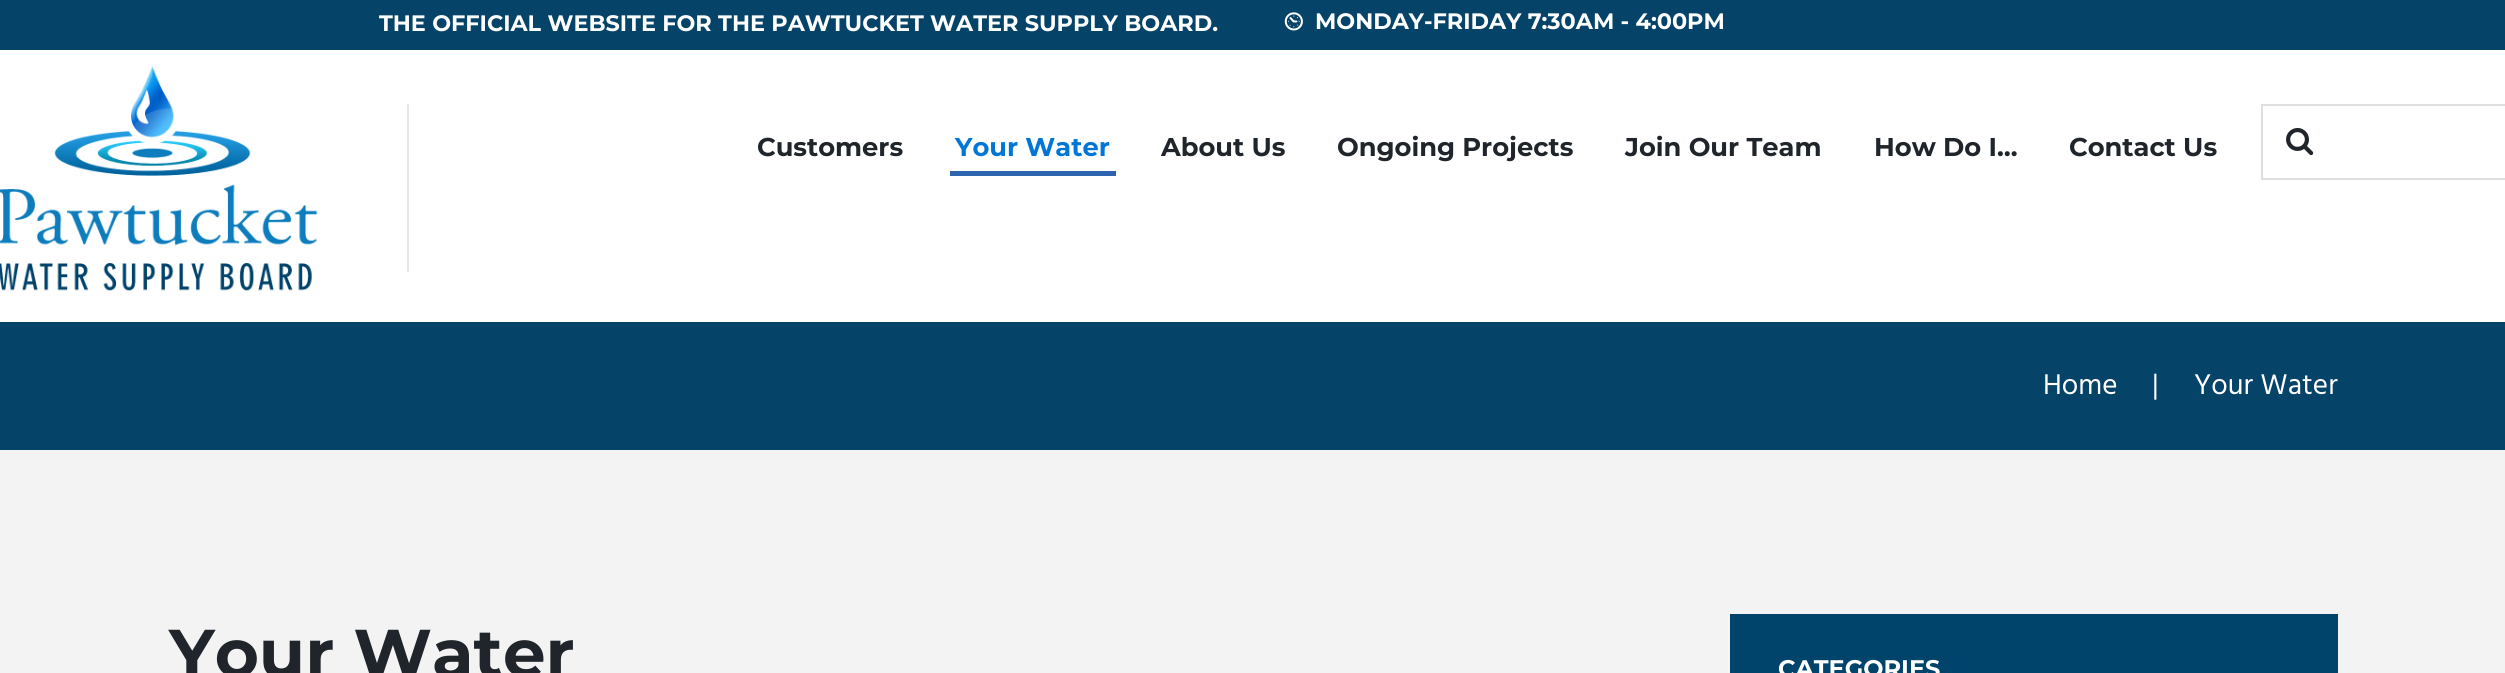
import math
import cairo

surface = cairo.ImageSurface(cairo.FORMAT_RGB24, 2505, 673)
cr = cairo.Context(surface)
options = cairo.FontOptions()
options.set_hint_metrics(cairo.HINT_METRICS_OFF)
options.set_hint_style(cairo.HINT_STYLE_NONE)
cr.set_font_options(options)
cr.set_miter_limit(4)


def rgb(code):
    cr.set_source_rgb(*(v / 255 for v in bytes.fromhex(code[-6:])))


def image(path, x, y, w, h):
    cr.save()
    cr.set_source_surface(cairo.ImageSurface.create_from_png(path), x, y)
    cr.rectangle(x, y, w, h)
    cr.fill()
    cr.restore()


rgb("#f3f3f3")
cr.paint()
rgb("#064368")
cr.rectangle(0, 0, 2505, 50)
cr.fill()
image("img/1.png", 1284, 12, 19, 19)
rgb("#ffffff")
cr.rectangle(0, 50, 2505, 272)
cr.fill()
image("img/2.png", 0, 66, 318, 225)
rgb("#e6e6e6")
cr.rectangle(407, 104, 2, 168)
cr.fill()
rgb("#2e63af")
cr.rectangle(950, 171, 166, 5)
cr.fill()
cr.rectangle(2262, 105, 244, 74)
rgb("#dfdfdf")
cr.stroke()
image("img/3.png", 2286, 128, 28, 28)
rgb("#064368")
cr.rectangle(0, 322, 2505, 128)
cr.fill()
rgb("#00446b")
cr.rectangle(1730, 614, 608, 59)
cr.fill()
cr.select_font_face("Montserrat", cairo.FONT_SLANT_NORMAL, cairo.FONT_WEIGHT_BOLD)
cr.set_font_size(22.35)
rgb("#ffffff")
cr.move_to(379, 31)
cr.show_text("THE OFFICIAL WEBSITE FOR THE PAWTUCKET WATER SUPPLY BOARD.")
cr.move_to(1315, 29)
cr.show_text("MONDAY-FRIDAY 7:30AM - 4:00PM")
cr.set_font_size(25.75)
rgb("#1f252b")
cr.move_to(757, 156)
cr.show_text("Customers")
rgb("#0077d7")
cr.move_to(955, 156)
cr.show_text("Your Water")
rgb("#1f252b")
for x, y, s in [
    (1161, 156, "About Us"),
    (1337, 156, "Ongoing Projects"),
    (1625, 156, "Join Our Team"),
    (1874, 156, "How Do I…"),
    (2069, 156, "Contact Us"),
]:
    cr.move_to(x, y)
    cr.show_text(s)
cr.select_font_face("Hind")
cr.set_font_size(29.25)
rgb("#ffffff")
for x, y, s in [
    (2043, 394, "Home"),
    (2152, 394, "|"),
    (2194, 394, "Your Water"),
]:
    cr.move_to(x, y)
    cr.show_text(s)
cr.select_font_face("Montserrat", cairo.FONT_SLANT_NORMAL, cairo.FONT_WEIGHT_BOLD)
cr.set_font_size(67.5)
rgb("#1f252b")
cr.move_to(169, 677)
cr.show_text("Your Water")
cr.set_font_size(24)
rgb("#ffffff")
cr.move_to(1778, 677)
cr.show_text("CATEGORIES")
surface.write_to_png("page.png")
